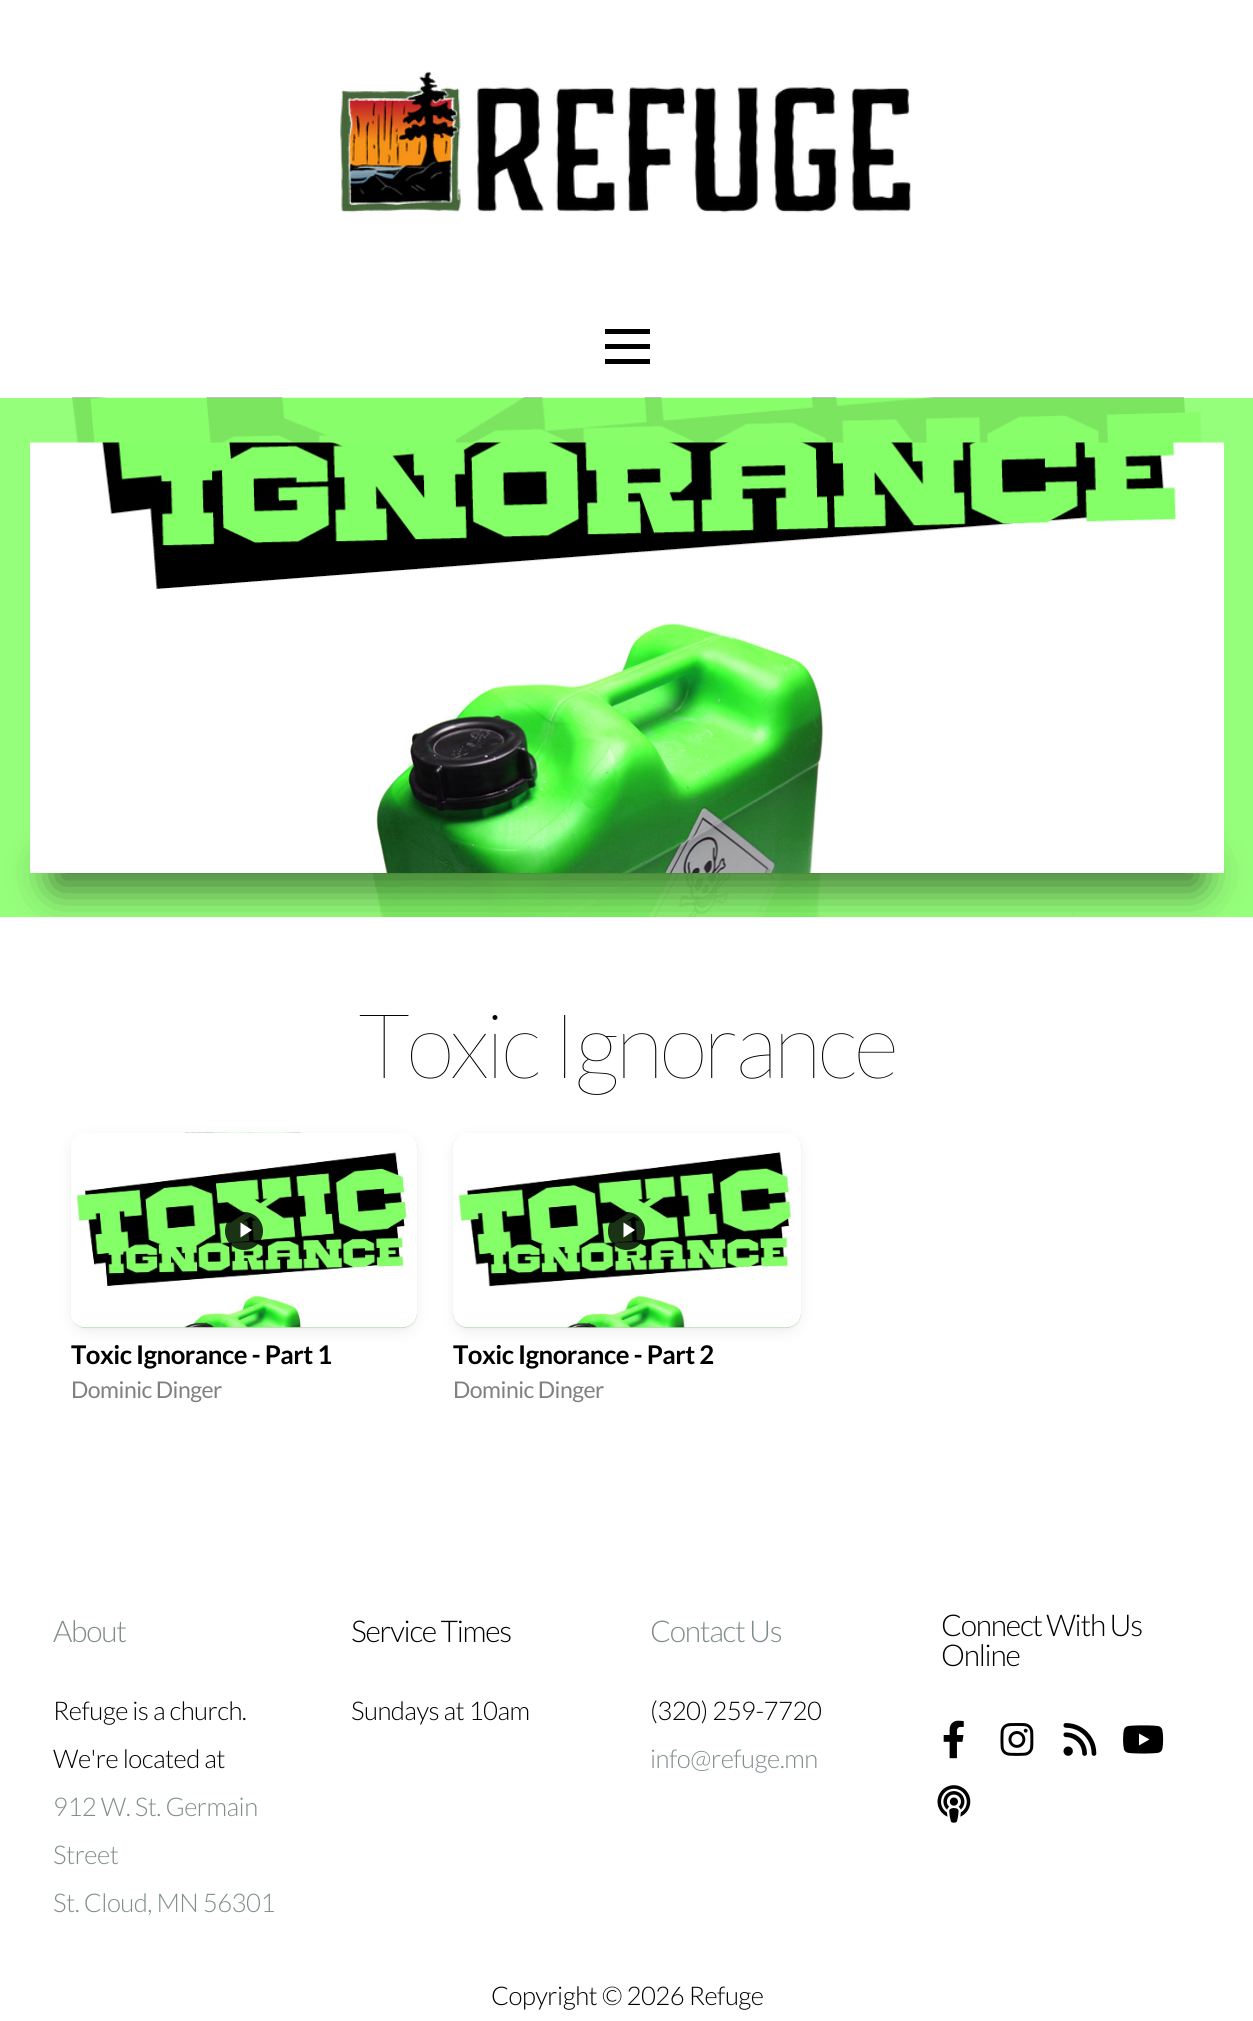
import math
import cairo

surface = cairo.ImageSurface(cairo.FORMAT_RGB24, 1253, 2021)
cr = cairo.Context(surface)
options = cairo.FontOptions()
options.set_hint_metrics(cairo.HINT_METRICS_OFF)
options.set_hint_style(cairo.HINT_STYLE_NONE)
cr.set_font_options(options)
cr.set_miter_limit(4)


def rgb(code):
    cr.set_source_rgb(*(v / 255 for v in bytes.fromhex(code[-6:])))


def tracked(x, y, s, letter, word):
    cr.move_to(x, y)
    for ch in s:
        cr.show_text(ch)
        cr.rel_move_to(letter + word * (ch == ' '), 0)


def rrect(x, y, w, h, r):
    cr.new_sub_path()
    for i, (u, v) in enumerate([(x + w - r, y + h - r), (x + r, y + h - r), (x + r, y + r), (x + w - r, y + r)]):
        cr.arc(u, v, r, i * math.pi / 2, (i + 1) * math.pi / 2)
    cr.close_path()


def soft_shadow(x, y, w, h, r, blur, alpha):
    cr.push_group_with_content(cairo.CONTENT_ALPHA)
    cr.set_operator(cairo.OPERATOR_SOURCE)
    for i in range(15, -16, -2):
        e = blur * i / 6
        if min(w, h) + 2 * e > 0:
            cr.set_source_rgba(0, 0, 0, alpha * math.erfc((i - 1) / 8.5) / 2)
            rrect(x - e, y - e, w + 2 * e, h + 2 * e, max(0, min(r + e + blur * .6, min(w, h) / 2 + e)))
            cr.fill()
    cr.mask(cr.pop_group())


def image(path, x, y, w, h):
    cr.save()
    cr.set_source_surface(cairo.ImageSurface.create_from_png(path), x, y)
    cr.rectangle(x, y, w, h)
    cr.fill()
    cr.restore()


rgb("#95fe7a")
cr.paint()
rgb("#ffffff")
cr.rectangle(0, 0, 1253, 398)
cr.fill()
image("img/1.png", 340, 71, 571, 142)
for x, y, w, h, color in [
    (605, 329, 45, 5, "#000000"),
    (605, 344, 45, 5, "#000000"),
    (605, 359, 45, 5, "#000000"),
]:
    rgb(color)
    cr.rectangle(x, y, w, h)
    cr.fill()
image("img/2.png", 72, 397, 1132, 520)
rgb("#000000")
soft_shadow(51, 857, 1152, 33, 16.5, 19, 0.5)
image("img/3.png", 30, 442, 1194, 431)
rgb("#ffffff")
cr.rectangle(0, 917, 1253, 1104)
cr.fill()
rgb("#000000")
soft_shadow(71, 1134, 346, 195, 15, 1.5, 0.04)
soft_shadow(71, 1137, 346, 195, 15, 7.5, 0.06)
rgb("#bbd8b6")
rrect(71, 1133, 346, 195, 15)
cr.fill()
image("img/4.png", 71, 1132, 346, 196)
cr.set_source_rgba(0, 0, 0, 0.8)
cr.arc(244, 1231, 19, 0, 2 * math.pi)
cr.fill()
rgb("#ffffff")
cr.new_path()
cr.move_to(240.5, 1237.5)
cr.line_to(240.5, 1222.5)
cr.line_to(252, 1230)
cr.close_path()
cr.fill()
rgb("#000000")
soft_shadow(453, 1134, 348, 195, 15, 1.5, 0.04)
soft_shadow(453, 1137, 348, 195, 15, 7.5, 0.06)
rgb("#bbd8b6")
rrect(453, 1133, 348, 195, 15)
cr.fill()
image("img/5.png", 453, 1133, 348, 195)
cr.set_source_rgba(0, 0, 0, 0.8)
rrect(608, 1212, 37, 38, 18.5)
cr.fill()
rgb("#ffffff")
cr.new_path()
cr.move_to(623.5, 1237.5)
cr.line_to(623.5, 1222.5)
cr.line_to(635, 1230)
cr.close_path()
cr.fill()
image("img/6.png", 943, 1720, 21, 39)
image("img/7.png", 1000, 1723, 34, 33)
image("img/8.png", 1063, 1723, 34, 33)
image("img/9.png", 1123, 1725, 41, 29)
image("img/10.png", 937, 1785, 34, 38)
cr.select_font_face("Lato Thin")
cr.set_font_size(90)
rgb("#000000")
tracked(358, 1078, "Toxic Ignorance", -3.6, 0)
cr.save()
cr.rectangle(71, 1335, 346, 39)
cr.clip()
cr.select_font_face("Lato", cairo.FONT_SLANT_NORMAL, cairo.FONT_WEIGHT_BOLD)
cr.set_font_size(25.75)
tracked(71, 1364, "Toxic Ignorance - Part 1", -0.5, 0)
cr.restore()
cr.select_font_face("Lato")
cr.set_font_size(23)
rgb("#808080")
tracked(71, 1398, "Dominic Dinger", -0.5, 0)
cr.select_font_face("Lato", cairo.FONT_SLANT_NORMAL, cairo.FONT_WEIGHT_BOLD)
cr.set_font_size(25.75)
rgb("#000000")
tracked(453, 1364, "Toxic Ignorance - Part 2", -0.5, 0)
cr.select_font_face("Lato")
cr.set_font_size(23)
rgb("#808080")
tracked(453, 1398, "Dominic Dinger", -0.5, 0)
cr.select_font_face("Lato Light")
cr.set_font_size(30)
rgb("#7f8c8d")
tracked(53, 1642, "About", -1.25, 0)
cr.set_font_size(25.75)
rgb("#000000")
tracked(53, 1720, "Refuge is a church.", -0.5, 0)
tracked(53, 1768, "We're located at", -0.5, 0)
rgb("#7f8c8d")
for x, y, s in [
    (53, 1816, "912 W. St. Germain"),
    (53, 1864, "Street"),
    (53, 1912, "St. Cloud, MN 56301"),
]:
    tracked(x, y, s, -0.5, 0)
cr.set_font_size(30)
rgb("#000000")
tracked(351, 1642, "Service Times", -1.25, 0)
cr.set_font_size(25.75)
tracked(351, 1720, "Sundays at 10am", -0.5, 0)
cr.set_font_size(30)
rgb("#7f8c8d")
tracked(650, 1642, "Contact Us", -1.25, 0)
cr.set_font_size(25.75)
rgb("#000000")
tracked(650, 1720, "(320) 259-7720", -0.5, 0)
rgb("#7f8c8d")
tracked(650, 1768, "info@refuge.mn", -0.5, 0)
cr.set_font_size(30)
rgb("#000000")
tracked(941, 1636, "Connect With Us", -1.25, 0)
tracked(941, 1666, "Online", -1.25, 0)
cr.set_font_size(25.75)
tracked(491, 2005, "Copyright © 2026 Refuge", -0.5, 0)
surface.write_to_png("page.png")
